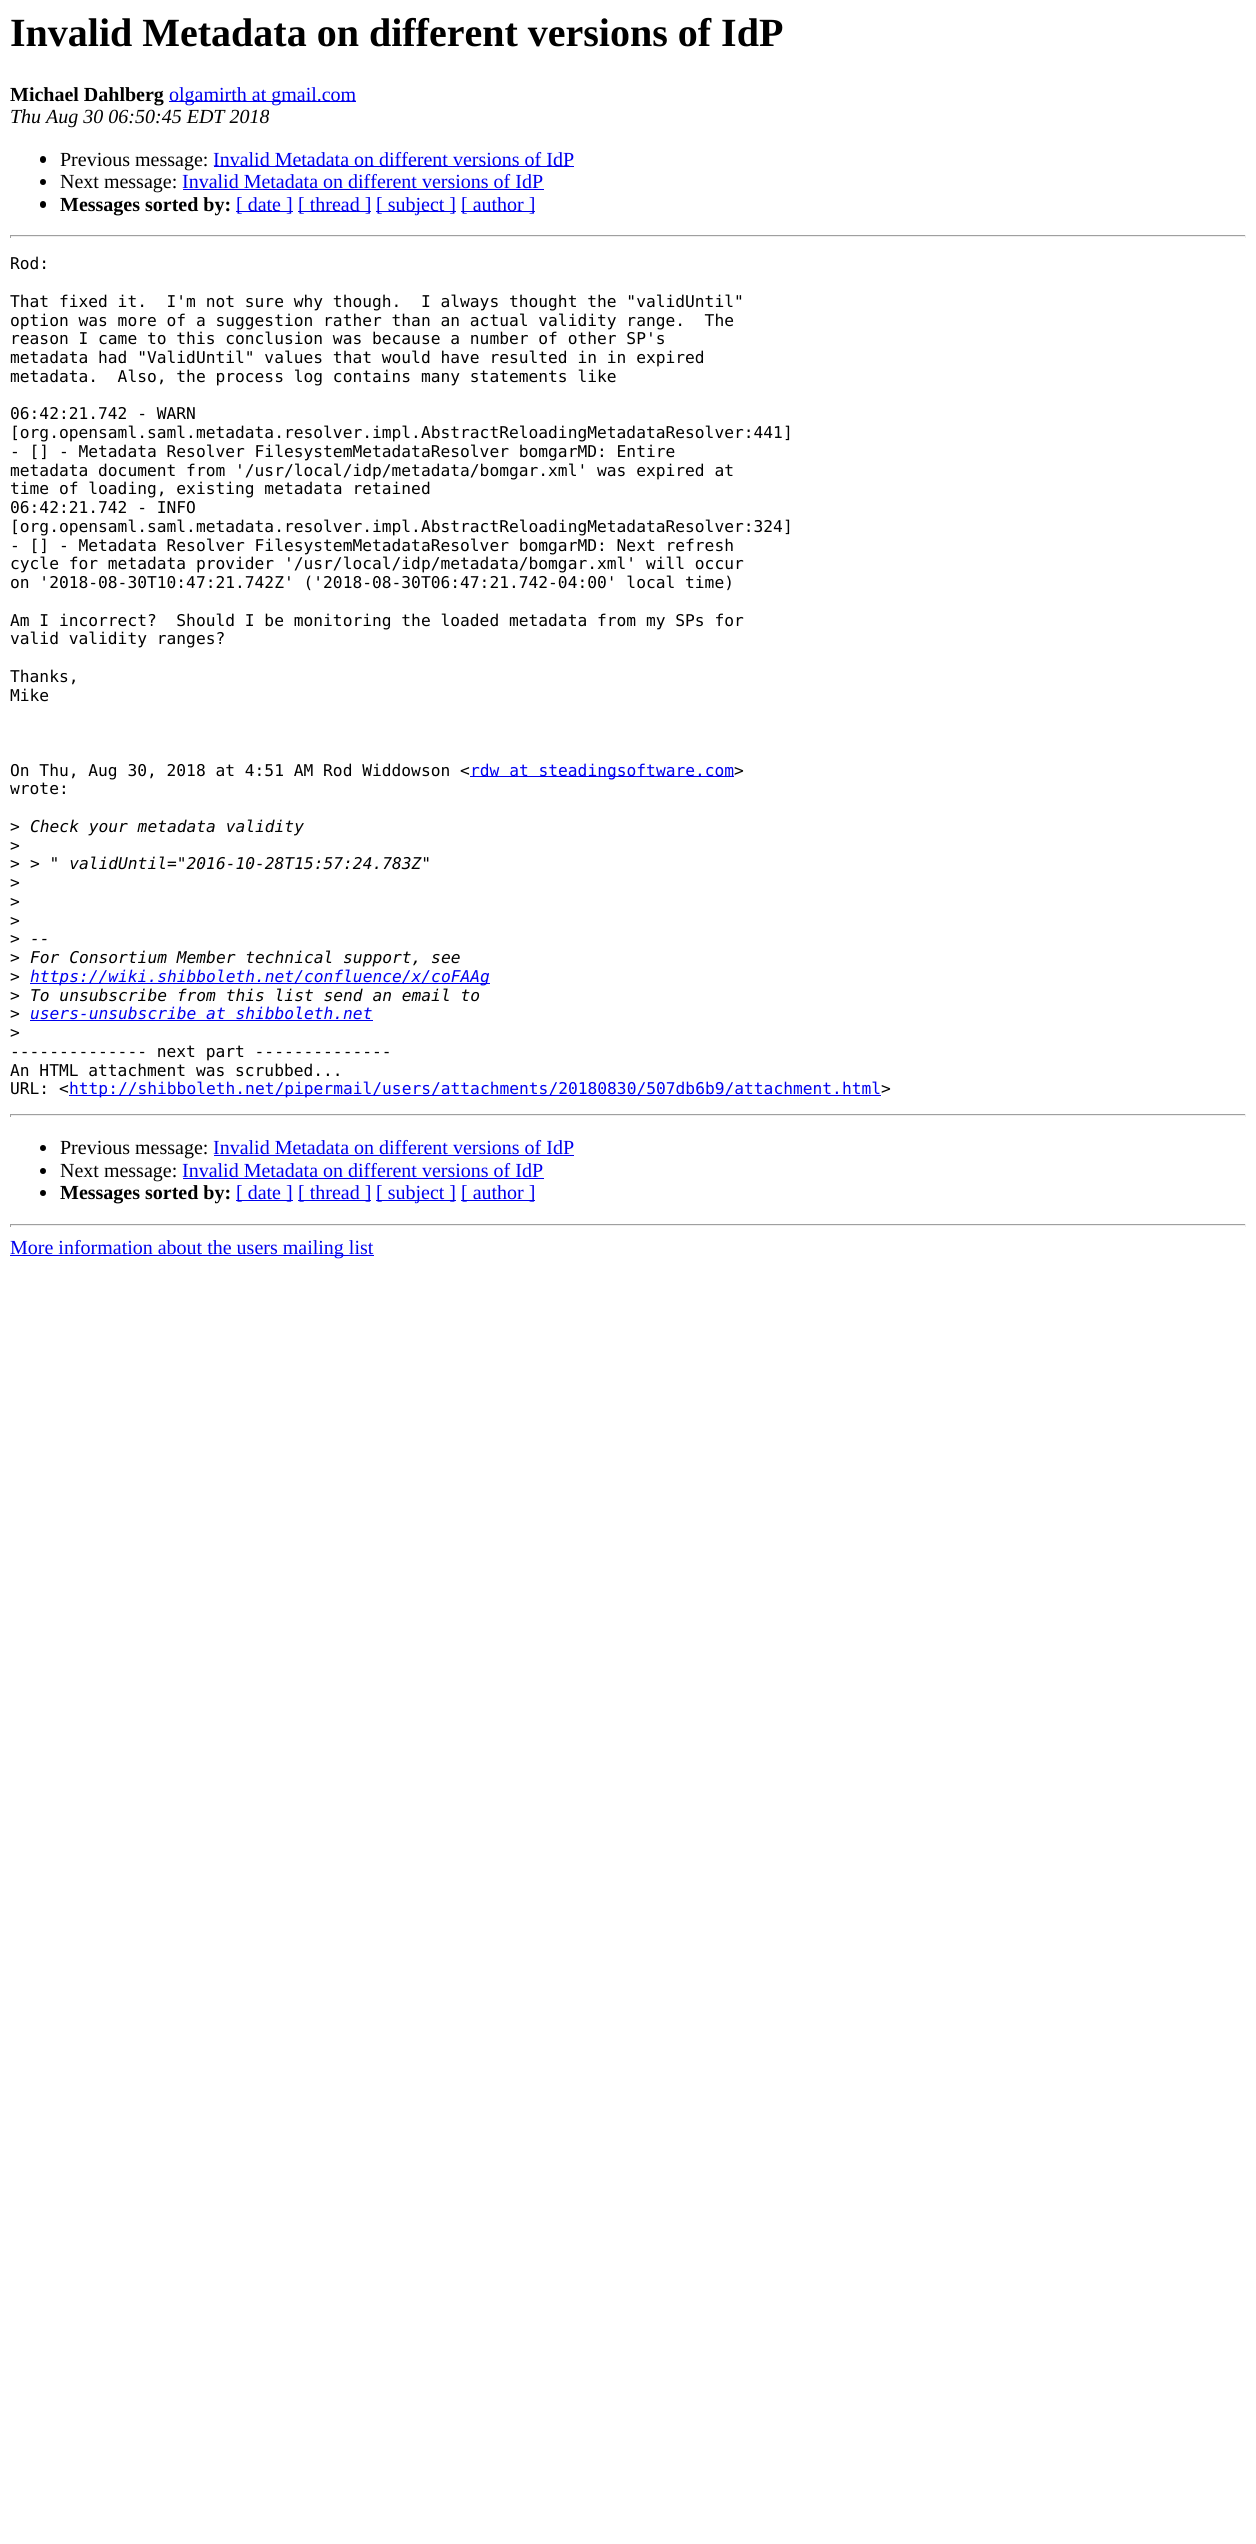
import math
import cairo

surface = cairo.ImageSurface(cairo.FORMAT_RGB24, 1256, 2544)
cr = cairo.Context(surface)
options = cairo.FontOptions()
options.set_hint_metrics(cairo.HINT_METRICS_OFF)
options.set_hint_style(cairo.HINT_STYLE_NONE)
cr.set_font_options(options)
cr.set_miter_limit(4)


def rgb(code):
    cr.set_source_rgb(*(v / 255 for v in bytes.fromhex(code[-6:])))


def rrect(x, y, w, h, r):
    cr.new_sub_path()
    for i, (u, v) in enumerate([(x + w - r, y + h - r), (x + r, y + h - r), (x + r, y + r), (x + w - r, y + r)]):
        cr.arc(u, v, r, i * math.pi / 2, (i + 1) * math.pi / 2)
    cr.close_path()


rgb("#ffffff")
cr.paint()
rgb("#0000ee")
cr.rectangle(169, 101, 187, 1)
cr.fill()
rgb("#000000")
rrect(40, 156, 6, 7, 3)
cr.fill()
rgb("#0000ee")
cr.rectangle(214, 166, 360, 1)
cr.fill()
rgb("#000000")
cr.arc(43, 182, 3, 0, 2 * math.pi)
cr.fill()
rgb("#0000ee")
cr.rectangle(183, 189, 361, 1)
cr.fill()
rgb("#000000")
rrect(40, 201, 6, 7, 3)
cr.fill()
for x, y, w, h, color in [
    (236, 211, 57, 1, "#0000ee"),
    (298, 211, 73, 1, "#0000ee"),
    (376, 211, 80, 1, "#0000ee"),
    (461, 211, 74, 1, "#0000ee"),
    (10, 235, 1236, 1, "#9f9f9f"),
    (1245, 235, 1, 3, "#eeeeee"),
    (10, 236, 1236, 1, "#eeeeee"),
    (10, 235, 1, 3, "#9f9f9f"),
    (470, 776, 264, 1, "#0000ee"),
    (30, 983, 460, 1, "#0000ee"),
    (30, 1020, 343, 1, "#0000ee"),
    (69, 1095, 812, 1, "#0000ee"),
    (10, 1114, 1236, 1, "#9f9f9f"),
    (1245, 1114, 1, 3, "#eeeeee"),
    (10, 1115, 1236, 1, "#eeeeee"),
    (10, 1114, 1, 3, "#9f9f9f"),
]:
    rgb(color)
    cr.rectangle(x, y, w, h)
    cr.fill()
rgb("#000000")
cr.arc(43, 1148, 3, 0, 2 * math.pi)
cr.fill()
rgb("#0000ee")
cr.rectangle(214, 1155, 360, 1)
cr.fill()
rgb("#000000")
cr.arc(43, 1171, 3, 0, 2 * math.pi)
cr.fill()
rgb("#0000ee")
cr.rectangle(183, 1178, 361, 1)
cr.fill()
rgb("#000000")
cr.arc(43, 1193, 3, 0, 2 * math.pi)
cr.fill()
for x, y, w, h, color in [
    (236, 1200, 57, 1, "#0000ee"),
    (298, 1200, 73, 1, "#0000ee"),
    (376, 1200, 80, 1, "#0000ee"),
    (461, 1200, 74, 1, "#0000ee"),
    (10, 1224, 1236, 1, "#9f9f9f"),
    (1245, 1224, 1, 3, "#eeeeee"),
    (10, 1225, 1236, 1, "#eeeeee"),
    (10, 1224, 1, 3, "#9f9f9f"),
    (10, 1255, 364, 1, "#0000ee"),
]:
    rgb(color)
    cr.rectangle(x, y, w, h)
    cr.fill()
cr.select_font_face("Liberation Serif", cairo.FONT_SLANT_NORMAL, cairo.FONT_WEIGHT_BOLD)
cr.set_font_size(40)
rgb("#000000")
cr.move_to(10, 46)
cr.show_text("Invalid Metadata on different versions of IdP")
cr.set_font_size(20)
cr.move_to(10, 101)
cr.show_text("Michael Dahlberg")
cr.select_font_face("Liberation Serif")
rgb("#0000ee")
cr.move_to(169, 101)
cr.show_text("olgamirth at gmail.com")
cr.select_font_face("Liberation Serif", cairo.FONT_SLANT_ITALIC)
rgb("#000000")
cr.move_to(10, 123)
cr.show_text("Thu Aug 30 06:50:45 EDT 2018")
cr.select_font_face("Liberation Serif")
cr.move_to(60, 166)
cr.show_text("Previous message:")
rgb("#0000ee")
cr.move_to(213, 166)
cr.show_text("Invalid Metadata on different versions of IdP")
rgb("#000000")
cr.move_to(60, 188)
cr.show_text("Next message:")
rgb("#0000ee")
cr.move_to(182, 188)
cr.show_text("Invalid Metadata on different versions of IdP")
cr.select_font_face("Liberation Serif", cairo.FONT_SLANT_NORMAL, cairo.FONT_WEIGHT_BOLD)
rgb("#000000")
cr.move_to(60, 211)
cr.show_text("Messages sorted by:")
cr.select_font_face("Liberation Serif")
rgb("#0000ee")
for x, y, s in [
    (236, 211, "[ date ]"),
    (298, 211, "[ thread ]"),
    (376, 211, "[ subject ]"),
    (461, 211, "[ author ]"),
]:
    cr.move_to(x, y)
    cr.show_text(s)
cr.select_font_face("DejaVu Sans Mono")
cr.set_font_size(16.25)
rgb("#000000")
for x, y, s in [
    (10, 269, "Rod:"),
    (10, 307, "That fixed it.  I'm not sure why though.  I always thought the \"validUntil\""),
    (10, 326, "option was more of a suggestion rather than an actual validity range.  The"),
    (10, 344, "reason I came to this conclusion was because a number of other SP's"),
    (10, 363, "metadata had \"ValidUntil\" values that would have resulted in in expired"),
    (10, 382, "metadata.  Also, the process log contains many statements like"),
    (10, 419, "06:42:21.742 - WARN"),
    (10, 438, "[org.opensaml.saml.metadata.resolver.impl.AbstractReloadingMetadataResolver:441]"),
    (10, 457, "- [] - Metadata Resolver FilesystemMetadataResolver bomgarMD: Entire"),
    (10, 476, "metadata document from '/usr/local/idp/metadata/bomgar.xml' was expired at"),
    (10, 494, "time of loading, existing metadata retained"),
    (10, 513, "06:42:21.742 - INFO"),
    (10, 532, "[org.opensaml.saml.metadata.resolver.impl.AbstractReloadingMetadataResolver:324]"),
    (10, 551, "- [] - Metadata Resolver FilesystemMetadataResolver bomgarMD: Next refresh"),
    (10, 569, "cycle for metadata provider '/usr/local/idp/metadata/bomgar.xml' will occur"),
    (10, 588, "on '2018-08-30T10:47:21.742Z' ('2018-08-30T06:47:21.742-04:00' local time)"),
    (10, 626, "Am I incorrect?  Should I be monitoring the loaded metadata from my SPs for"),
    (10, 644, "valid validity ranges?"),
    (10, 682, "Thanks,"),
    (10, 701, "Mike"),
    (10, 776, "On Thu, Aug 30, 2018 at 4:51 AM Rod Widdowson <"),
]:
    cr.move_to(x, y)
    cr.show_text(s)
rgb("#0000ee")
cr.move_to(470, 776)
cr.show_text("rdw at steadingsoftware.com")
rgb("#000000")
for x, y, s in [
    (734, 776, ">"),
    (10, 794, "wrote:"),
    (10, 832, ">"),
]:
    cr.move_to(x, y)
    cr.show_text(s)
cr.select_font_face("DejaVu Sans Mono", cairo.FONT_SLANT_ITALIC)
cr.move_to(30, 832)
cr.show_text("Check your metadata validity")
cr.select_font_face("DejaVu Sans Mono")
cr.move_to(10, 851)
cr.show_text(">")
cr.move_to(10, 869)
cr.show_text(">")
cr.select_font_face("DejaVu Sans Mono", cairo.FONT_SLANT_ITALIC)
cr.move_to(30, 869)
cr.show_text("> \" validUntil=\"2016-10-28T15:57:24.783Z\"")
cr.select_font_face("DejaVu Sans Mono")
for x, y, s in [
    (10, 888, ">"),
    (10, 907, ">"),
    (10, 926, ">"),
    (10, 944, ">"),
]:
    cr.move_to(x, y)
    cr.show_text(s)
cr.select_font_face("DejaVu Sans Mono", cairo.FONT_SLANT_ITALIC)
cr.move_to(30, 944)
cr.show_text("--")
cr.select_font_face("DejaVu Sans Mono")
cr.move_to(10, 963)
cr.show_text(">")
cr.select_font_face("DejaVu Sans Mono", cairo.FONT_SLANT_ITALIC)
cr.move_to(30, 963)
cr.show_text("For Consortium Member technical support, see")
cr.select_font_face("DejaVu Sans Mono")
cr.move_to(10, 982)
cr.show_text(">")
cr.select_font_face("DejaVu Sans Mono", cairo.FONT_SLANT_ITALIC)
rgb("#0000ee")
cr.move_to(30, 982)
cr.show_text("https://wiki.shibboleth.net/confluence/x/coFAAg")
cr.select_font_face("DejaVu Sans Mono")
rgb("#000000")
cr.move_to(10, 1001)
cr.show_text(">")
cr.select_font_face("DejaVu Sans Mono", cairo.FONT_SLANT_ITALIC)
cr.move_to(30, 1001)
cr.show_text("To unsubscribe from this list send an email to")
cr.select_font_face("DejaVu Sans Mono")
cr.move_to(10, 1019)
cr.show_text(">")
cr.select_font_face("DejaVu Sans Mono", cairo.FONT_SLANT_ITALIC)
rgb("#0000ee")
cr.move_to(30, 1019)
cr.show_text("users-unsubscribe at shibboleth.net")
cr.select_font_face("DejaVu Sans Mono")
rgb("#000000")
for x, y, s in [
    (10, 1038, ">"),
    (10, 1057, "-------------- next part --------------"),
    (10, 1076, "An HTML attachment was scrubbed..."),
    (10, 1094, "URL: <"),
]:
    cr.move_to(x, y)
    cr.show_text(s)
rgb("#0000ee")
cr.move_to(69, 1094)
cr.show_text("http://shibboleth.net/pipermail/users/attachments/20180830/507db6b9/attachment.html")
rgb("#000000")
cr.move_to(881, 1094)
cr.show_text(">")
cr.select_font_face("Liberation Serif")
cr.set_font_size(20)
cr.move_to(60, 1154)
cr.show_text("Previous message:")
rgb("#0000ee")
cr.move_to(213, 1154)
cr.show_text("Invalid Metadata on different versions of IdP")
rgb("#000000")
cr.move_to(60, 1177)
cr.show_text("Next message:")
rgb("#0000ee")
cr.move_to(182, 1177)
cr.show_text("Invalid Metadata on different versions of IdP")
cr.select_font_face("Liberation Serif", cairo.FONT_SLANT_NORMAL, cairo.FONT_WEIGHT_BOLD)
rgb("#000000")
cr.move_to(60, 1199)
cr.show_text("Messages sorted by:")
cr.select_font_face("Liberation Serif")
rgb("#0000ee")
for x, y, s in [
    (236, 1199, "[ date ]"),
    (298, 1199, "[ thread ]"),
    (376, 1199, "[ subject ]"),
    (461, 1199, "[ author ]"),
    (10, 1254, "More information about the users mailing list"),
]:
    cr.move_to(x, y)
    cr.show_text(s)
surface.write_to_png("page.png")
